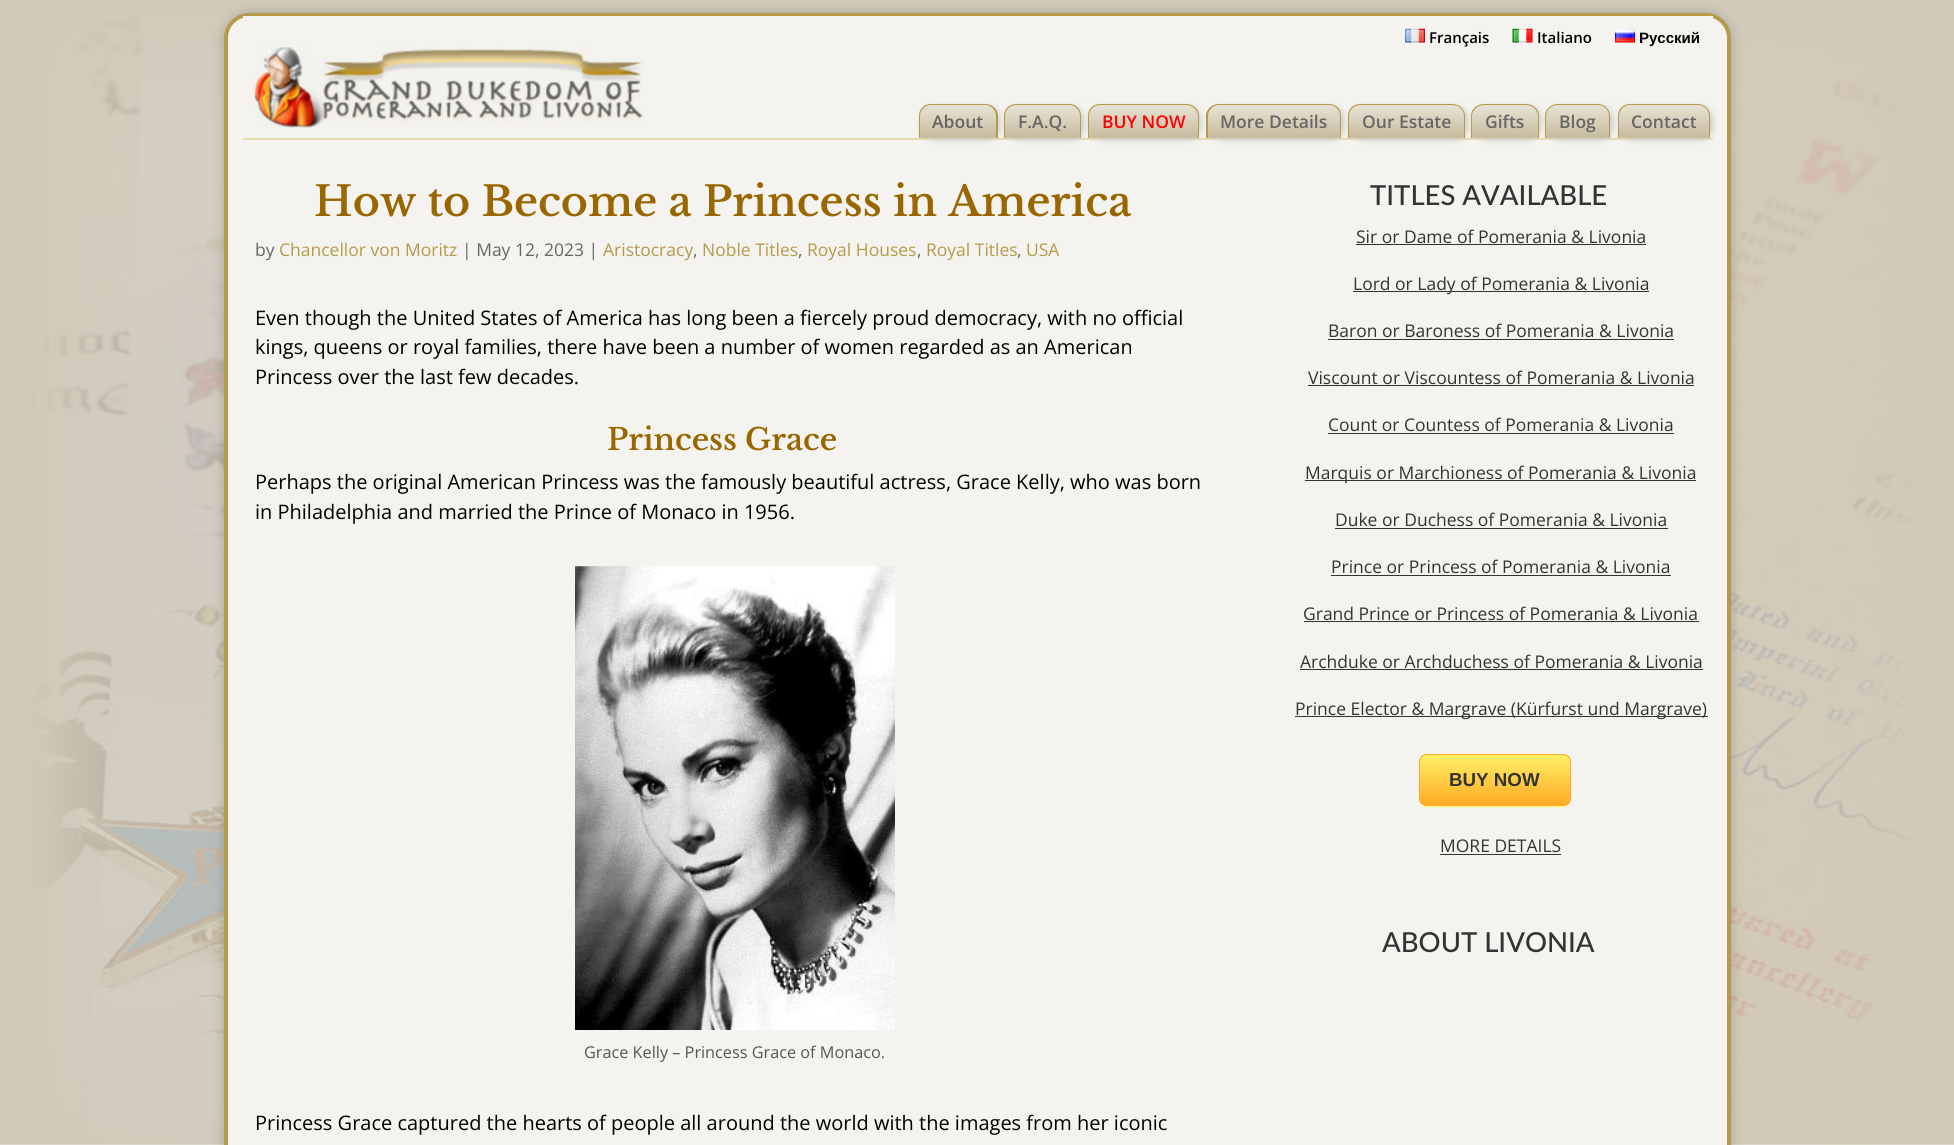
import math
import cairo

surface = cairo.ImageSurface(cairo.FORMAT_RGB24, 1954, 1145)
cr = cairo.Context(surface)
options = cairo.FontOptions()
options.set_hint_metrics(cairo.HINT_METRICS_OFF)
options.set_hint_style(cairo.HINT_STYLE_NONE)
cr.set_font_options(options)
cr.set_miter_limit(4)


def rgb(code):
    cr.set_source_rgb(*(v / 255 for v in bytes.fromhex(code[-6:])))


def rrect(x, y, w, h, r):
    cr.new_sub_path()
    for i, (u, v) in enumerate([(x + w - r, y + h - r), (x + r, y + h - r), (x + r, y + r), (x + w - r, y + r)]):
        cr.arc(u, v, r, i * math.pi / 2, (i + 1) * math.pi / 2)
    cr.close_path()


def soft_shadow(x, y, w, h, r, blur, alpha):
    cr.push_group_with_content(cairo.CONTENT_ALPHA)
    cr.set_operator(cairo.OPERATOR_SOURCE)
    for i in range(15, -16, -2):
        e = blur * i / 6
        if min(w, h) + 2 * e > 0:
            cr.set_source_rgba(0, 0, 0, alpha * math.erfc((i - 1) / 8.5) / 2)
            rrect(x - e, y - e, w + 2 * e, h + 2 * e, max(0, min(r + e + blur * .6, min(w, h) / 2 + e)))
            cr.fill()
    cr.mask(cr.pop_group())


def image(path, x, y, w, h):
    cr.save()
    cr.set_source_surface(cairo.ImageSurface.create_from_png(path), x, y)
    cr.rectangle(x, y, w, h)
    cr.fill()
    cr.restore()


rgb("#ffffff")
cr.paint()
image("img/1.png", 0, 0, 1954, 1145)
rgb("#000000")
soft_shadow(224, 13, 1507, 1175, 25, 6, 0.2)
rgb("#f4f3ef")
rrect(226, 15, 1503, 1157, 23)
cr.fill_preserve()
rgb("#b59a4a")
cr.set_line_width(4)
cr.stroke()
rgb("#f4f3ef")
cr.rectangle(243, 16, 1470, 3)
cr.fill()
image("img/2.png", 1405, 28, 20, 15)
image("img/3.png", 1512, 28, 21, 15)
image("img/4.png", 1615, 28, 20, 15)
rgb("#e6dab1")
cr.new_path()
cr.move_to(243, 138)
cr.line_to(243, 140)
cr.line_to(1713, 140)
cr.line_to(1713, 53)
cr.line_to(1712, 53)
cr.line_to(1712, 138)
cr.close_path()
cr.fill()
rgb("#f4f3ef")
cr.rectangle(1712, 53, 1, 85)
cr.fill()
image("img/5.png", 249, 47, 396, 81)
rgb("#cccccc")
soft_shadow(921, 106, 79, 34, 13, 3, 1)
cr.save()
cr.new_path()
cr.move_to(932, 104)
cr.line_to(985, 104)
cr.curve_to(992, 104, 998, 110, 998, 117)
cr.line_to(998, 138)
cr.line_to(919, 138)
cr.line_to(919, 117)
cr.curve_to(919, 110, 925, 104, 932, 104)
cr.close_path()
cr.clip()
gradient = cairo.LinearGradient(920, 105, 920, 138)
gradient.add_color_stop_rgba(0, 0.91, 0.89, 0.835, 1)
gradient.add_color_stop_rgba(1, 0.776, 0.733, 0.616, 1)
cr.set_source(gradient)
cr.rectangle(919, 105, 79, 33)
cr.fill()
cr.restore()
rgb("#b59a4a")
cr.set_fill_rule(cairo.FILL_RULE_EVEN_ODD)
cr.new_path()
cr.move_to(931, 104)
cr.line_to(985, 104)
cr.curve_to(992, 104, 998, 109, 998, 116)
cr.line_to(998, 138)
cr.line_to(919, 138)
cr.line_to(919, 116)
cr.curve_to(919, 109, 924, 104, 931, 104)
cr.close_path()
cr.move_to(931, 105)
cr.line_to(985, 105)
cr.curve_to(991, 105, 996, 110, 996, 116)
cr.line_to(996, 138)
cr.line_to(920, 138)
cr.line_to(920, 116)
cr.curve_to(920, 110, 925, 105, 931, 105)
cr.close_path()
cr.fill()
rgb("#cccccc")
soft_shadow(1006, 106, 78, 34, 13, 3, 1)
cr.save()
cr.set_fill_rule(cairo.FILL_RULE_WINDING)
cr.new_path()
cr.move_to(1017, 104)
cr.line_to(1068, 104)
cr.curve_to(1075, 104, 1081, 110, 1081, 117)
cr.line_to(1081, 138)
cr.line_to(1004, 138)
cr.line_to(1004, 117)
cr.curve_to(1004, 110, 1010, 104, 1017, 104)
cr.close_path()
cr.clip()
gradient = cairo.LinearGradient(1005, 105, 1005, 138)
gradient.add_color_stop_rgba(0, 0.91, 0.89, 0.835, 1)
gradient.add_color_stop_rgba(1, 0.776, 0.733, 0.616, 1)
cr.set_source(gradient)
cr.rectangle(1004, 105, 77, 33)
cr.fill()
cr.restore()
rgb("#b59a4a")
cr.new_path()
cr.move_to(1016, 104)
cr.line_to(1069, 104)
cr.curve_to(1076, 104, 1081, 109, 1081, 116)
cr.line_to(1081, 138)
cr.line_to(1004, 138)
cr.line_to(1004, 116)
cr.curve_to(1004, 109, 1009, 104, 1016, 104)
cr.close_path()
cr.move_to(1016, 105)
cr.line_to(1069, 105)
cr.curve_to(1075, 105, 1080, 110, 1080, 116)
cr.line_to(1080, 138)
cr.line_to(1005, 138)
cr.line_to(1005, 116)
cr.curve_to(1005, 110, 1010, 105, 1016, 105)
cr.close_path()
cr.fill()
rgb("#cccccc")
soft_shadow(1090, 106, 111, 34, 13, 3, 1)
cr.save()
cr.set_fill_rule(cairo.FILL_RULE_WINDING)
cr.new_path()
cr.move_to(1101, 104)
cr.line_to(1186, 104)
cr.curve_to(1193, 104, 1199, 110, 1199, 117)
cr.line_to(1199, 138)
cr.line_to(1088, 138)
cr.line_to(1088, 117)
cr.curve_to(1088, 110, 1094, 104, 1101, 104)
cr.close_path()
cr.clip()
gradient = cairo.LinearGradient(1089, 105, 1089, 138)
gradient.add_color_stop_rgba(0, 0.91, 0.89, 0.835, 1)
gradient.add_color_stop_rgba(1, 0.776, 0.733, 0.616, 1)
cr.set_source(gradient)
cr.rectangle(1088, 105, 111, 33)
cr.fill()
cr.restore()
rgb("#b59a4a")
cr.new_path()
cr.move_to(1100, 104)
cr.line_to(1186, 104)
cr.curve_to(1193, 104, 1199, 109, 1199, 116)
cr.line_to(1199, 138)
cr.line_to(1088, 138)
cr.line_to(1088, 116)
cr.curve_to(1088, 109, 1093, 104, 1100, 104)
cr.close_path()
cr.move_to(1100, 105)
cr.line_to(1186, 105)
cr.curve_to(1192, 105, 1198, 110, 1198, 116)
cr.line_to(1198, 138)
cr.line_to(1089, 138)
cr.line_to(1089, 116)
cr.curve_to(1089, 110, 1094, 105, 1100, 105)
cr.close_path()
cr.fill()
rgb("#cccccc")
soft_shadow(1209, 106, 135, 34, 13, 3, 1)
cr.save()
cr.set_fill_rule(cairo.FILL_RULE_WINDING)
cr.new_path()
cr.move_to(1219, 104)
cr.line_to(1328, 104)
cr.curve_to(1335, 104, 1341, 110, 1341, 117)
cr.line_to(1341, 138)
cr.line_to(1206, 138)
cr.line_to(1206, 117)
cr.curve_to(1206, 110, 1212, 104, 1219, 104)
cr.close_path()
cr.clip()
gradient = cairo.LinearGradient(1208, 105, 1208, 138)
gradient.add_color_stop_rgba(0, 0.91, 0.89, 0.835, 1)
gradient.add_color_stop_rgba(1, 0.776, 0.733, 0.616, 1)
cr.set_source(gradient)
cr.rectangle(1206, 105, 135, 33)
cr.fill()
cr.restore()
rgb("#b59a4a")
cr.new_path()
cr.move_to(1219, 104)
cr.line_to(1329, 104)
cr.curve_to(1336, 104, 1341, 109, 1341, 116)
cr.line_to(1341, 138)
cr.line_to(1206, 138)
cr.line_to(1206, 116)
cr.curve_to(1206, 109, 1212, 104, 1219, 104)
cr.close_path()
cr.move_to(1219, 105)
cr.line_to(1329, 105)
cr.curve_to(1335, 105, 1340, 110, 1340, 116)
cr.line_to(1340, 138)
cr.line_to(1208, 138)
cr.line_to(1208, 116)
cr.curve_to(1208, 110, 1213, 105, 1219, 105)
cr.close_path()
cr.fill()
rgb("#cccccc")
soft_shadow(1350, 106, 118, 34, 13, 3, 1)
cr.save()
cr.set_fill_rule(cairo.FILL_RULE_WINDING)
cr.new_path()
cr.move_to(1361, 104)
cr.line_to(1452, 104)
cr.curve_to(1459, 104, 1465, 110, 1465, 117)
cr.line_to(1465, 138)
cr.line_to(1348, 138)
cr.line_to(1348, 117)
cr.curve_to(1348, 110, 1354, 104, 1361, 104)
cr.close_path()
cr.clip()
gradient = cairo.LinearGradient(1349, 105, 1349, 138)
gradient.add_color_stop_rgba(0, 0.91, 0.89, 0.835, 1)
gradient.add_color_stop_rgba(1, 0.776, 0.733, 0.616, 1)
cr.set_source(gradient)
cr.rectangle(1348, 105, 117, 33)
cr.fill()
cr.restore()
rgb("#b59a4a")
cr.new_path()
cr.move_to(1360, 104)
cr.line_to(1452, 104)
cr.curve_to(1459, 104, 1465, 109, 1465, 116)
cr.line_to(1465, 138)
cr.line_to(1348, 138)
cr.line_to(1348, 116)
cr.curve_to(1348, 109, 1353, 104, 1360, 104)
cr.close_path()
cr.move_to(1360, 105)
cr.line_to(1452, 105)
cr.curve_to(1459, 105, 1464, 110, 1464, 116)
cr.line_to(1464, 138)
cr.line_to(1349, 138)
cr.line_to(1349, 116)
cr.curve_to(1349, 110, 1354, 105, 1360, 105)
cr.close_path()
cr.fill()
rgb("#cccccc")
soft_shadow(1474, 106, 67, 34, 13, 3, 1)
cr.save()
cr.set_fill_rule(cairo.FILL_RULE_WINDING)
cr.new_path()
cr.move_to(1484, 104)
cr.line_to(1526, 104)
cr.curve_to(1533, 104, 1539, 110, 1539, 117)
cr.line_to(1539, 138)
cr.line_to(1471, 138)
cr.line_to(1471, 117)
cr.curve_to(1471, 110, 1477, 104, 1484, 104)
cr.close_path()
cr.clip()
gradient = cairo.LinearGradient(1473, 105, 1473, 138)
gradient.add_color_stop_rgba(0, 0.91, 0.89, 0.835, 1)
gradient.add_color_stop_rgba(1, 0.776, 0.733, 0.616, 1)
cr.set_source(gradient)
cr.rectangle(1471, 105, 68, 33)
cr.fill()
cr.restore()
rgb("#b59a4a")
cr.new_path()
cr.move_to(1484, 104)
cr.line_to(1526, 104)
cr.curve_to(1533, 104, 1539, 109, 1539, 116)
cr.line_to(1539, 138)
cr.line_to(1471, 138)
cr.line_to(1471, 116)
cr.curve_to(1471, 109, 1477, 104, 1484, 104)
cr.close_path()
cr.move_to(1484, 105)
cr.line_to(1526, 105)
cr.curve_to(1532, 105, 1538, 110, 1538, 116)
cr.line_to(1538, 138)
cr.line_to(1472, 138)
cr.line_to(1472, 116)
cr.curve_to(1472, 110, 1478, 105, 1484, 105)
cr.close_path()
cr.fill()
rgb("#cccccc")
soft_shadow(1548, 106, 65, 34, 13, 3, 1)
cr.save()
cr.set_fill_rule(cairo.FILL_RULE_WINDING)
cr.new_path()
cr.move_to(1558, 104)
cr.line_to(1597, 104)
cr.curve_to(1604, 104, 1610, 110, 1610, 117)
cr.line_to(1610, 138)
cr.line_to(1545, 138)
cr.line_to(1545, 117)
cr.curve_to(1545, 110, 1551, 104, 1558, 104)
cr.close_path()
cr.clip()
gradient = cairo.LinearGradient(1546, 105, 1546, 138)
gradient.add_color_stop_rgba(0, 0.91, 0.89, 0.835, 1)
gradient.add_color_stop_rgba(1, 0.776, 0.733, 0.616, 1)
cr.set_source(gradient)
cr.rectangle(1545, 105, 65, 33)
cr.fill()
cr.restore()
rgb("#b59a4a")
cr.new_path()
cr.move_to(1558, 104)
cr.line_to(1598, 104)
cr.curve_to(1604, 104, 1610, 109, 1610, 116)
cr.line_to(1610, 138)
cr.line_to(1545, 138)
cr.line_to(1545, 116)
cr.curve_to(1545, 109, 1551, 104, 1558, 104)
cr.close_path()
cr.move_to(1558, 105)
cr.line_to(1598, 105)
cr.curve_to(1604, 105, 1609, 110, 1609, 116)
cr.line_to(1609, 138)
cr.line_to(1546, 138)
cr.line_to(1546, 116)
cr.curve_to(1546, 110, 1551, 105, 1558, 105)
cr.close_path()
cr.fill()
rgb("#cccccc")
soft_shadow(1620, 106, 93, 34, 13, 3, 1)
cr.save()
cr.set_fill_rule(cairo.FILL_RULE_WINDING)
cr.new_path()
cr.move_to(1631, 104)
cr.line_to(1697, 104)
cr.curve_to(1704, 104, 1710, 110, 1710, 117)
cr.line_to(1710, 138)
cr.line_to(1618, 138)
cr.line_to(1618, 117)
cr.curve_to(1618, 110, 1624, 104, 1631, 104)
cr.close_path()
cr.clip()
gradient = cairo.LinearGradient(1619, 105, 1619, 138)
gradient.add_color_stop_rgba(0, 0.91, 0.89, 0.835, 1)
gradient.add_color_stop_rgba(1, 0.776, 0.733, 0.616, 1)
cr.set_source(gradient)
cr.rectangle(1618, 105, 92, 33)
cr.fill()
cr.restore()
rgb("#b59a4a")
cr.new_path()
cr.move_to(1630, 104)
cr.line_to(1698, 104)
cr.curve_to(1704, 104, 1710, 109, 1710, 116)
cr.line_to(1710, 138)
cr.line_to(1618, 138)
cr.line_to(1618, 116)
cr.curve_to(1618, 109, 1623, 104, 1630, 104)
cr.close_path()
cr.move_to(1630, 105)
cr.line_to(1698, 105)
cr.curve_to(1704, 105, 1709, 110, 1709, 116)
cr.line_to(1709, 138)
cr.line_to(1619, 138)
cr.line_to(1619, 116)
cr.curve_to(1619, 110, 1624, 105, 1630, 105)
cr.close_path()
cr.fill()
image("img/6.png", 575, 566, 320, 464)
for x, y, w, h, color in [
    (1356, 244, 290, 1, "#333333"),
    (1353, 291, 296, 1, "#333333"),
    (1328, 339, 346, 1, "#333333"),
    (1308, 385, 386, 1, "#333333"),
    (1328, 433, 346, 1, "#333333"),
    (1305, 480, 391, 1, "#333333"),
    (1335, 528, 333, 1, "#333333"),
    (1331, 575, 340, 1, "#333333"),
    (1304, 621, 395, 1, "#333333"),
    (1300, 669, 403, 1, "#333333"),
    (1295, 716, 413, 1, "#333333"),
]:
    rgb(color)
    cr.rectangle(x, y, w, h)
    cr.fill()
rgb("#fff6af")
cr.set_fill_rule(cairo.FILL_RULE_WINDING)
cr.new_path()
cr.move_to(1419, 801)
cr.curve_to(1419, 805, 1423, 808, 1427, 808)
cr.line_to(1563, 808)
cr.curve_to(1567, 808, 1571, 805, 1571, 801)
cr.curve_to(1570, 804, 1567, 806, 1564, 806)
cr.line_to(1426, 806)
cr.curve_to(1423, 806, 1420, 804, 1419, 801)
cr.close_path()
cr.fill()
cr.save()
rrect(1419, 754, 152, 52, 8)
cr.clip()
gradient = cairo.LinearGradient(1495, 755, 1495, 805)
gradient.add_color_stop_rgba(0.05, 1, 0.925, 0.392, 1)
gradient.add_color_stop_rgba(1, 1, 0.671, 0.137, 1)
cr.set_source(gradient)
cr.rectangle(1419, 755, 152, 50)
cr.fill()
cr.restore()
rrect(1419.5, 754.5, 151, 51, 7.5)
rgb("#ffaa22")
cr.set_line_width(1)
cr.stroke()
rgb("#333333")
cr.rectangle(1440, 854, 121, 1)
cr.fill()
cr.select_font_face("Open Sans SemiBold")
cr.set_font_size(15)
rgb("#000000")
cr.move_to(1429, 43)
cr.show_text("Français")
cr.move_to(1537, 43)
cr.show_text("Italiano")
cr.select_font_face("Liberation Sans", cairo.FONT_SLANT_NORMAL, cairo.FONT_WEIGHT_BOLD)
cr.move_to(1639, 43)
cr.show_text("Русский")
cr.select_font_face("Open Sans SemiBold")
cr.set_font_size(17.5)
rgb("#666666")
cr.move_to(932, 128)
cr.show_text("About")
cr.move_to(1018, 128)
cr.show_text("F.A.Q.")
rgb("#ff0000")
cr.move_to(1102, 128)
cr.show_text("BUY NOW")
rgb("#666666")
for x, y, s in [
    (1220, 128, "More Details"),
    (1362, 128, "Our Estate"),
    (1485, 128, "Gifts"),
    (1559, 128, "Blog"),
    (1631, 128, "Contact"),
]:
    cr.move_to(x, y)
    cr.show_text(s)
cr.select_font_face("Libre Baskerville SemiBold")
cr.set_font_size(41.25)
rgb("#996600")
cr.move_to(314, 216)
cr.show_text("How to Become a Princess in America")
cr.select_font_face("Open Sans")
cr.set_font_size(17.5)
rgb("#666666")
cr.move_to(255, 256)
cr.show_text("by")
rgb("#b59a4a")
cr.move_to(279, 256)
cr.show_text("Chancellor von Moritz")
rgb("#666666")
cr.move_to(462, 256)
cr.show_text("| May 12, 2023 |")
rgb("#b59a4a")
cr.move_to(603, 256)
cr.show_text("Aristocracy")
rgb("#666666")
cr.move_to(693, 256)
cr.show_text(",")
rgb("#b59a4a")
cr.move_to(702, 256)
cr.show_text("Noble Titles")
rgb("#666666")
cr.move_to(798, 256)
cr.show_text(",")
rgb("#b59a4a")
cr.move_to(807, 256)
cr.show_text("Royal Houses")
rgb("#666666")
cr.move_to(917, 256)
cr.show_text(",")
rgb("#b59a4a")
cr.move_to(926, 256)
cr.show_text("Royal Titles")
rgb("#666666")
cr.move_to(1017, 256)
cr.show_text(",")
rgb("#b59a4a")
cr.move_to(1026, 256)
cr.show_text("USA")
cr.set_font_size(20)
rgb("#000000")
for x, y, s in [
    (255, 325, "Even though the United States of America has long been a fiercely proud democracy, with no official"),
    (255, 354, "kings, queens or royal families, there have been a number of women regarded as an American"),
    (255, 384, "Princess over the last few decades."),
]:
    cr.move_to(x, y)
    cr.show_text(s)
cr.select_font_face("Libre Baskerville SemiBold")
cr.set_font_size(30)
rgb("#996600")
cr.move_to(607, 450)
cr.show_text("Princess Grace")
cr.select_font_face("Open Sans")
cr.set_font_size(20)
rgb("#000000")
cr.move_to(255, 489)
cr.show_text("Perhaps the original American Princess was the famously beautiful actress, Grace Kelly, who was born")
cr.move_to(255, 519)
cr.show_text("in Philadelphia and married the Prince of Monaco in 1956.")
cr.set_font_size(16.25)
rgb("#555555")
cr.move_to(584, 1058)
cr.show_text("Grace Kelly – Princess Grace of Monaco.")
cr.set_font_size(20)
rgb("#000000")
cr.move_to(255, 1130)
cr.show_text("Princess Grace captured the hearts of people all around the world with the images from her iconic")
cr.select_font_face("Lato Medium")
cr.set_font_size(27.5)
rgb("#333333")
cr.move_to(1370, 205)
cr.show_text("TITLES AVAILABLE")
cr.select_font_face("Open Sans")
cr.set_font_size(17.5)
for x, y, s in [
    (1356, 243, "Sir or Dame of Pomerania & Livonia"),
    (1353, 290, "Lord or Lady of Pomerania & Livonia"),
    (1328, 337, "Baron or Baroness of Pomerania & Livonia"),
    (1308, 384, "Viscount or Viscountess of Pomerania & Livonia"),
    (1328, 431, "Count or Countess of Pomerania & Livonia"),
    (1305, 479, "Marquis or Marchioness of Pomerania & Livonia"),
    (1335, 526, "Duke or Duchess of Pomerania & Livonia"),
    (1331, 573, "Prince or Princess of Pomerania & Livonia"),
    (1303, 620, "Grand Prince or Princess of Pomerania & Livonia"),
    (1300, 668, "Archduke or Archduchess of Pomerania & Livonia"),
    (1295, 715, "Prince Elector & Margrave (Kürfurst und Margrave)"),
]:
    cr.move_to(x, y)
    cr.show_text(s)
cr.select_font_face("Liberation Sans", cairo.FONT_SLANT_NORMAL, cairo.FONT_WEIGHT_BOLD)
cr.set_font_size(18.75)
cr.move_to(1449, 786)
cr.show_text("BUY NOW")
cr.select_font_face("Open Sans")
cr.set_font_size(17.5)
cr.move_to(1440, 852)
cr.show_text("MORE DETAILS")
cr.select_font_face("Lato Medium")
cr.set_font_size(27.5)
cr.move_to(1382, 952)
cr.show_text("ABOUT LIVONIA")
surface.write_to_png("page.png")
